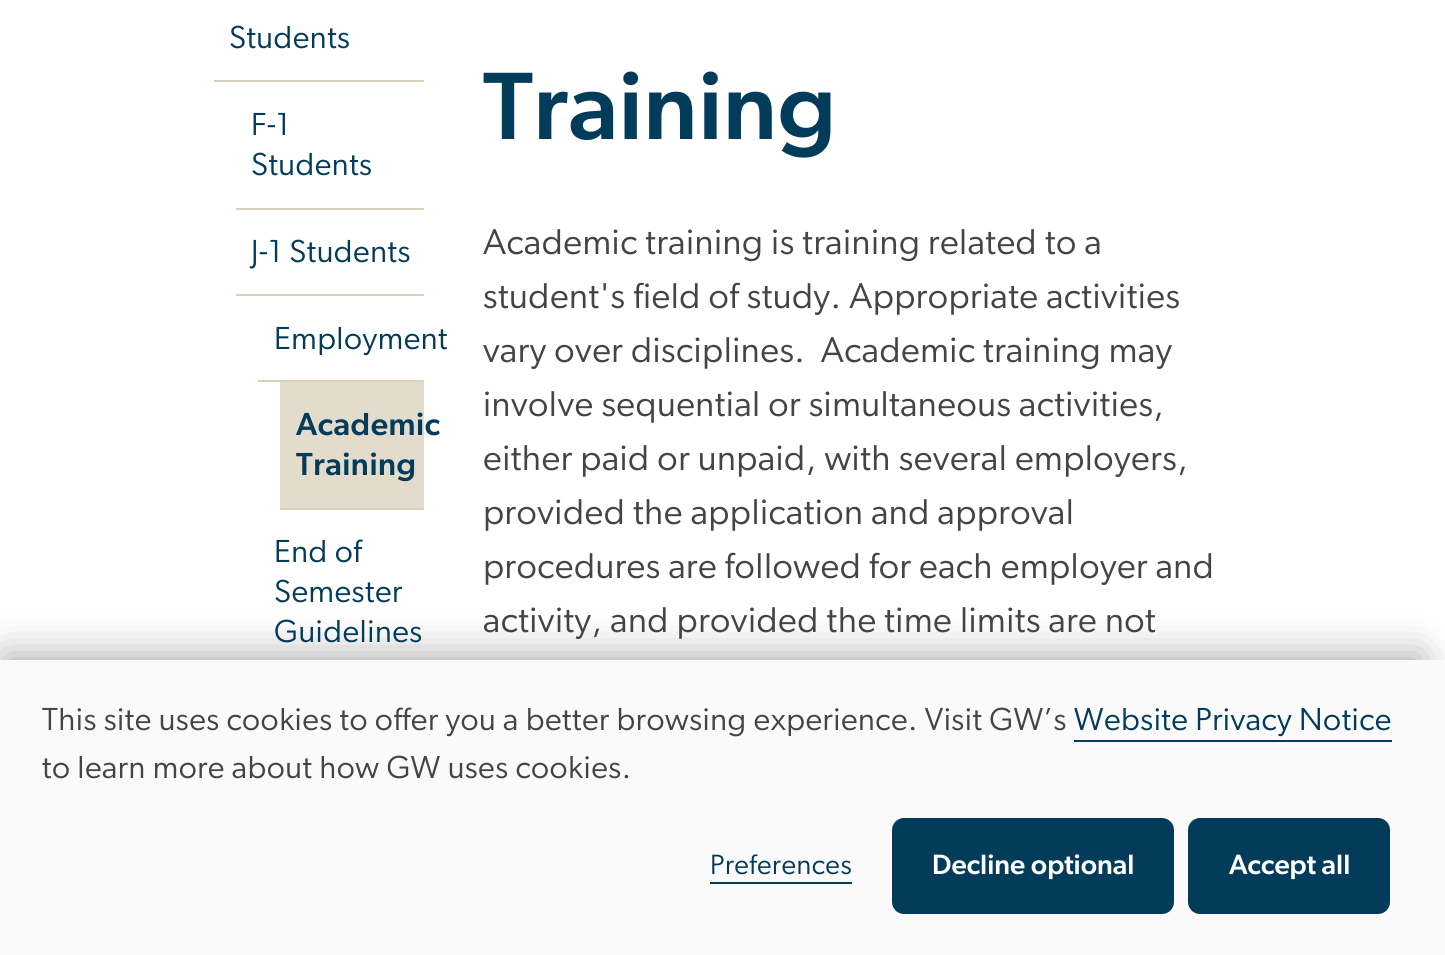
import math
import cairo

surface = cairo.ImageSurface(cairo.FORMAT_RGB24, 1445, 955)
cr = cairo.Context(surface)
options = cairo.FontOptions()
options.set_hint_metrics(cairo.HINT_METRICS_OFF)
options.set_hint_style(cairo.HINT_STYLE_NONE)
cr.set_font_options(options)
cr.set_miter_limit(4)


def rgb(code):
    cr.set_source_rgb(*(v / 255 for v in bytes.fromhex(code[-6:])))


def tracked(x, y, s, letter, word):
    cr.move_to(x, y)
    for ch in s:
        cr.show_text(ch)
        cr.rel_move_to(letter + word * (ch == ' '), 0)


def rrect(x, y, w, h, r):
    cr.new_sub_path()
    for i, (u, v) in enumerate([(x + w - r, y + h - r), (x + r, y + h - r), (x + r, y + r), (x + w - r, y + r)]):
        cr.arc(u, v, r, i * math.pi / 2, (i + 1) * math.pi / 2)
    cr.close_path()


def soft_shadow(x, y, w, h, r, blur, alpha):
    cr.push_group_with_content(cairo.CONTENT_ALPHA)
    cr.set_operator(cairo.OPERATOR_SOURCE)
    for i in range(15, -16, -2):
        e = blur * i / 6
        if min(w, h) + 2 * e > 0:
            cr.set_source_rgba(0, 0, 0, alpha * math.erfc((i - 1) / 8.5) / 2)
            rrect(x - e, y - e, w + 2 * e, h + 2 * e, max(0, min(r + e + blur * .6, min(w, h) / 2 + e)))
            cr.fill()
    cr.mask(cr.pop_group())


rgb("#ffffff")
cr.paint()
for x, y, w, h, color in [
    (214, 80, 210, 2, "#d9d0bb"),
    (236, 208, 188, 2, "#d9d0bb"),
    (236, 294, 188, 2, "#d9d0bb"),
    (258, 380, 166, 2, "#d9d0bb"),
    (280, 382, 144, 126, "#e3dccc"),
    (280, 508, 144, 2, "#d9d0bb"),
]:
    rgb(color)
    cr.rectangle(x, y, w, h)
    cr.fill()
rgb("#050505")
soft_shadow(4, 654, 1418, 268, 0, 19, 0.32)
for x, y, w, h, color in [
    (0, 660, 1445, 295, "#fafafa"),
    (1074, 740, 318, 2, "#033c5a"),
    (710, 882, 142, 2, "#033c5a"),
]:
    rgb(color)
    cr.rectangle(x, y, w, h)
    cr.fill()
rrect(895, 821, 276, 90, 9)
cr.fill_preserve()
cr.set_line_width(6)
cr.stroke()
rrect(1191, 821, 196, 90, 9)
cr.fill_preserve()
cr.stroke()
cr.select_font_face("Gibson")
cr.set_font_size(32)
for x, y, s in [
    (229, 48, "Students"),
    (251, 135, "F-1"),
    (251, 175, "Students"),
    (251, 262, "J-1 Students"),
    (274, 349, "Employment"),
]:
    tracked(x, y, s, 0.5, 0)
cr.select_font_face("Gibson Medium")
tracked(296, 435, "Academic", 0.5, 0)
tracked(296, 475, "Training", 0.5, 0)
cr.select_font_face("Gibson")
for x, y, s in [
    (274, 562, "End of"),
    (274, 602, "Semester"),
    (274, 642, "Guidelines"),
]:
    tracked(x, y, s, 0.5, 0)
cr.select_font_face("Gibson Medium")
cr.set_font_size(96)
tracked(483, 139, "Training", 0.5, 0)
cr.select_font_face("Gibson")
cr.set_font_size(36)
rgb("#444444")
for x, y, s in [
    (483, 254, "Academic training is training related to a"),
    (483, 308, "student's field of study. Appropriate activities"),
    (483, 362, "vary over disciplines.  Academic training may"),
    (483, 416, "involve sequential or simultaneous activities,"),
    (483, 470, "either paid or unpaid, with several employers,"),
    (483, 524, "provided the application and approval"),
    (483, 578, "procedures are followed for each employer and"),
    (483, 632, "activity, and provided the time limits are not"),
]:
    tracked(x, y, s, 0.5, 0)
cr.set_font_size(32)
tracked(42, 730, "This site uses cookies to offer you a better browsing experience. Visit GW’s", 0.5, 0)
rgb("#033c5a")
tracked(1074, 730, "Website Privacy Notice", 0.5, 0)
rgb("#444444")
tracked(42, 778, "to learn more about how GW uses cookies.", 0.5, 0)
cr.set_font_size(28)
rgb("#033c5a")
tracked(710, 874, "Preferences", 0.5, 0)
cr.select_font_face("Gibson Medium")
rgb("#ffffff")
cr.move_to(932, 874)
cr.show_text("Decline optional")
cr.move_to(1229, 874)
cr.show_text("Accept all")
surface.write_to_png("page.png")
